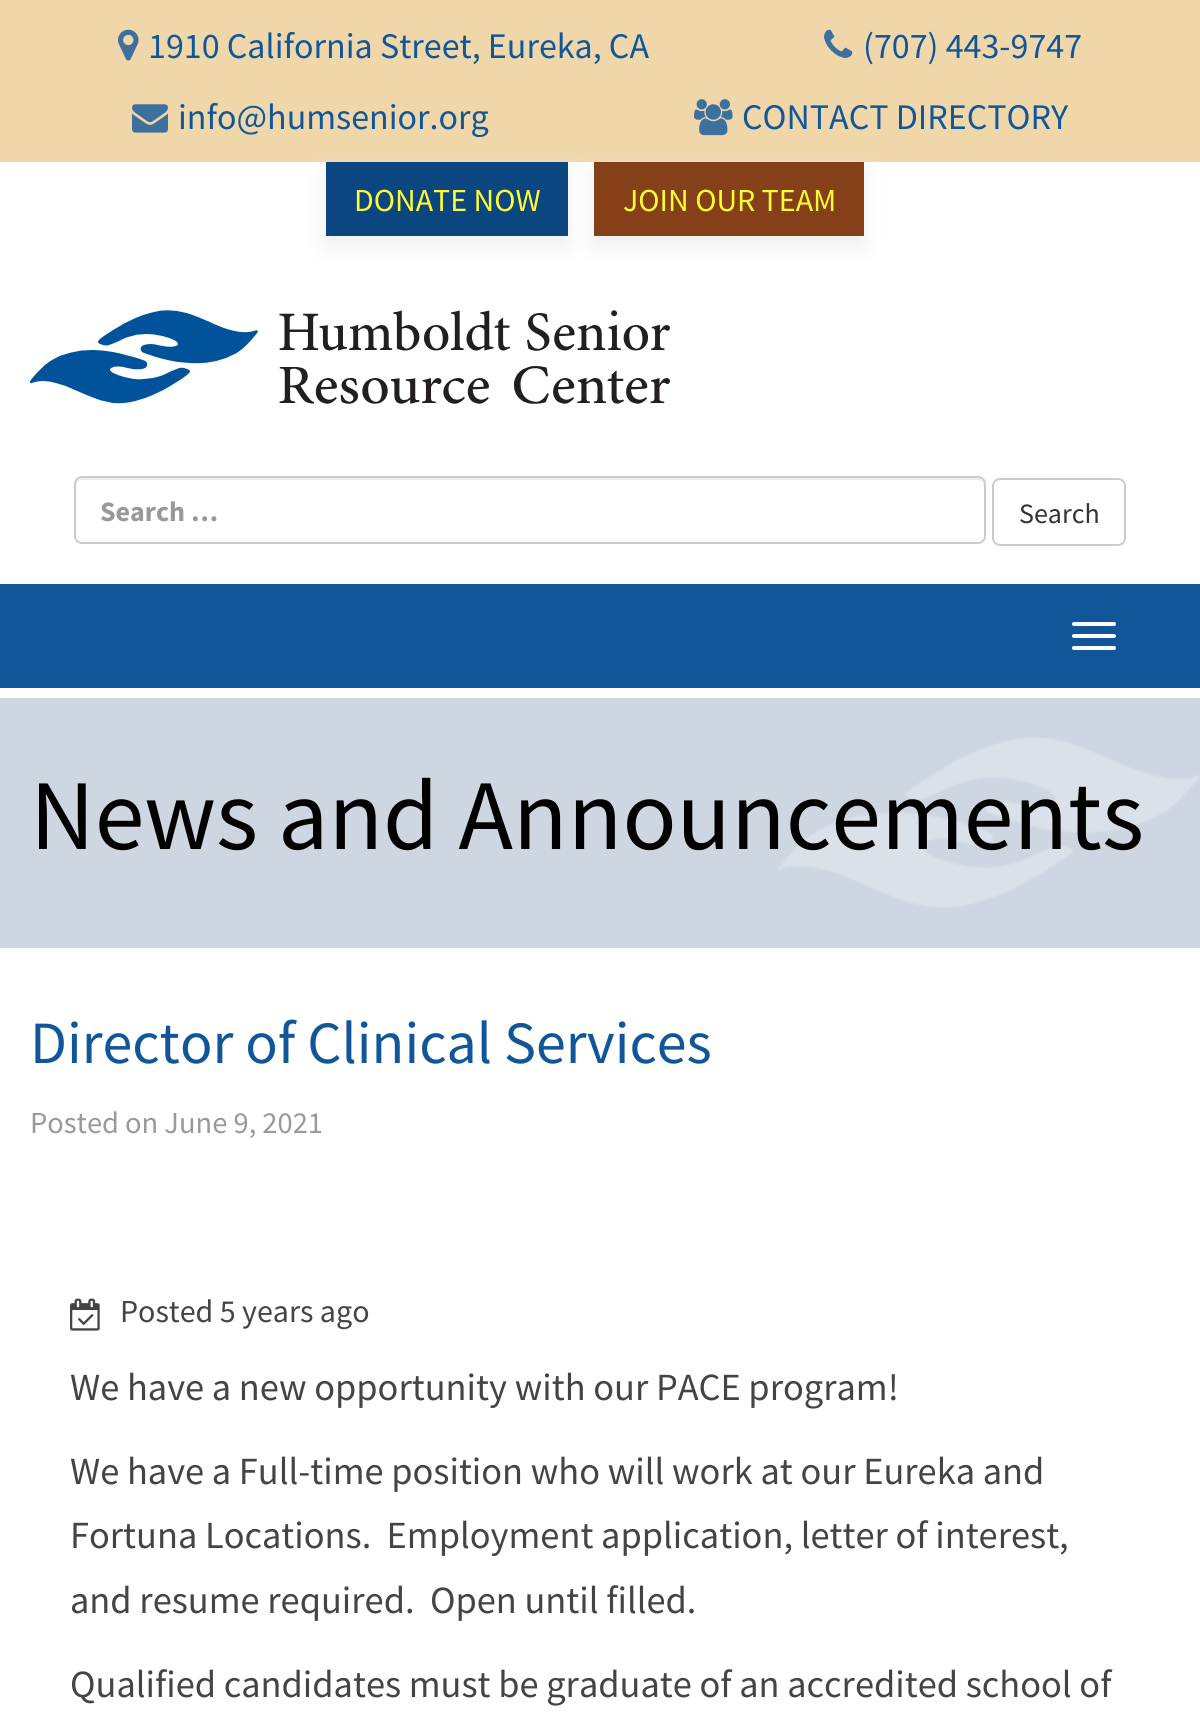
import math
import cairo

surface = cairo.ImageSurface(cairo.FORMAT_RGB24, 1200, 1712)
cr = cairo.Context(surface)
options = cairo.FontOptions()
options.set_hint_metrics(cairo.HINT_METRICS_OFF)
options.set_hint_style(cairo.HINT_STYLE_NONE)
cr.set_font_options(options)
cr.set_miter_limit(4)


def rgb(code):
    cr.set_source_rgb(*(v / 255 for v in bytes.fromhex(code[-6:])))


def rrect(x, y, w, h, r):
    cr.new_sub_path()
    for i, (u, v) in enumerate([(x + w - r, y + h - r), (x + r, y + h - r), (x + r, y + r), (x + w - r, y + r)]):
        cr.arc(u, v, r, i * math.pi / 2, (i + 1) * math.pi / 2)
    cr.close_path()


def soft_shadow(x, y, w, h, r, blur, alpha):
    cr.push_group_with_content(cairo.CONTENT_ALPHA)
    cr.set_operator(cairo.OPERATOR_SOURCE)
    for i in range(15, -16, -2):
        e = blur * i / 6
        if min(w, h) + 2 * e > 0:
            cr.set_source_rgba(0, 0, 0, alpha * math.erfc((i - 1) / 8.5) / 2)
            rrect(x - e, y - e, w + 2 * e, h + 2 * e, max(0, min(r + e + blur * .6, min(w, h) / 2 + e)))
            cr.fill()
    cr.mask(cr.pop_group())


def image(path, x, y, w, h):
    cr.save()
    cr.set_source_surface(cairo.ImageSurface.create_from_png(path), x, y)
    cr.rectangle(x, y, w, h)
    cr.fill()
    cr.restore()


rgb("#ffffff")
cr.paint()
rgb("#efd7aa")
cr.rectangle(0, 0, 1200, 162)
cr.fill()
image("img/1.png", 118, 29, 21, 32)
image("img/2.png", 824, 29, 29, 29)
image("img/3.png", 132, 104, 36, 29)
image("img/4.png", 694, 99, 39, 37)
rgb("#eeeeee")
soft_shadow(326, 172, 242, 74, 0, 10, 1)
rgb("#0c4681")
cr.rectangle(326, 162, 242, 74)
cr.fill()
rgb("#eeeeee")
soft_shadow(594, 172, 270, 74, 0, 10, 1)
rgb("#853f19")
cr.rectangle(594, 162, 270, 74)
cr.fill()
image("img/5.png", 30, 310, 640, 94)
rgb("#ececec")
cr.new_path()
cr.move_to(82, 480)
cr.line_to(978, 480)
cr.curve_to(981, 480, 984, 483, 984, 486)
cr.line_to(984, 484)
cr.curve_to(984, 481, 981, 478, 978, 478)
cr.line_to(82, 478)
cr.curve_to(79, 478, 76, 481, 76, 484)
cr.line_to(76, 486)
cr.curve_to(76, 483, 79, 480, 82, 480)
cr.close_path()
cr.fill()
rrect(75, 477, 910, 66, 7)
rgb("#cccccc")
cr.stroke()
rrect(993, 479, 132, 66, 7)
cr.stroke()
rgb("#12569a")
cr.rectangle(0, 584, 1200, 104)
cr.fill()
rgb("#ffffff")
rrect(1072, 622, 44, 4, 2)
cr.fill()
rrect(1072, 634, 44, 4, 2)
cr.fill()
rrect(1072, 646, 44, 4, 2)
cr.fill()
rgb("#ced7e1")
cr.rectangle(0, 698, 1200, 250)
cr.fill()
image("img/6.png", 778, 738, 422, 170)
image("img/7.png", 70, 1298, 30, 33)
cr.select_font_face("Source Sans Pro")
cr.set_font_size(36)
rgb("#12569a")
for x, y, s in [
    (148, 58, "1910 California Street, Eureka, CA"),
    (863, 58, "(707) 443-9747"),
    (178, 129, "info@humsenior.org"),
    (742, 129, "CONTACT DIRECTORY"),
]:
    cr.move_to(x, y)
    cr.show_text(s)
cr.set_font_size(32)
rgb("#fffd30")
cr.move_to(354, 211)
cr.show_text("DONATE NOW")
cr.move_to(623, 211)
cr.show_text("JOIN OUR TEAM")
cr.select_font_face("Source Sans Pro", cairo.FONT_SLANT_NORMAL, cairo.FONT_WEIGHT_BOLD)
cr.set_font_size(28)
rgb("#999999")
cr.move_to(100, 521)
cr.show_text("Search …")
cr.select_font_face("Source Sans Pro")
rgb("#333333")
cr.move_to(1019, 523)
cr.show_text("Search")
cr.set_font_size(100)
rgb("#000000")
cr.move_to(30, 849)
cr.show_text("News and Announcements")
cr.set_font_size(60)
rgb("#12569a")
cr.move_to(30, 1063)
cr.show_text("Director of Clinical Services")
cr.set_font_size(30.5)
rgb("#999999")
cr.move_to(30, 1133)
cr.show_text("Posted on June 9, 2021")
cr.set_font_size(32)
rgb("#444444")
cr.move_to(120, 1322)
cr.show_text("Posted 5 years ago")
cr.set_font_size(38.4)
for x, y, s in [
    (70, 1400, "We have a new opportunity with our PACE program!"),
    (70, 1484, "We have a Full-time position who will work at our Eureka and"),
    (70, 1548, "Fortuna Locations.  Employment application, letter of interest,"),
    (70, 1613, "and resume required.  Open until filled."),
    (70, 1697, "Qualified candidates must be graduate of an accredited school of"),
]:
    cr.move_to(x, y)
    cr.show_text(s)
surface.write_to_png("page.png")
